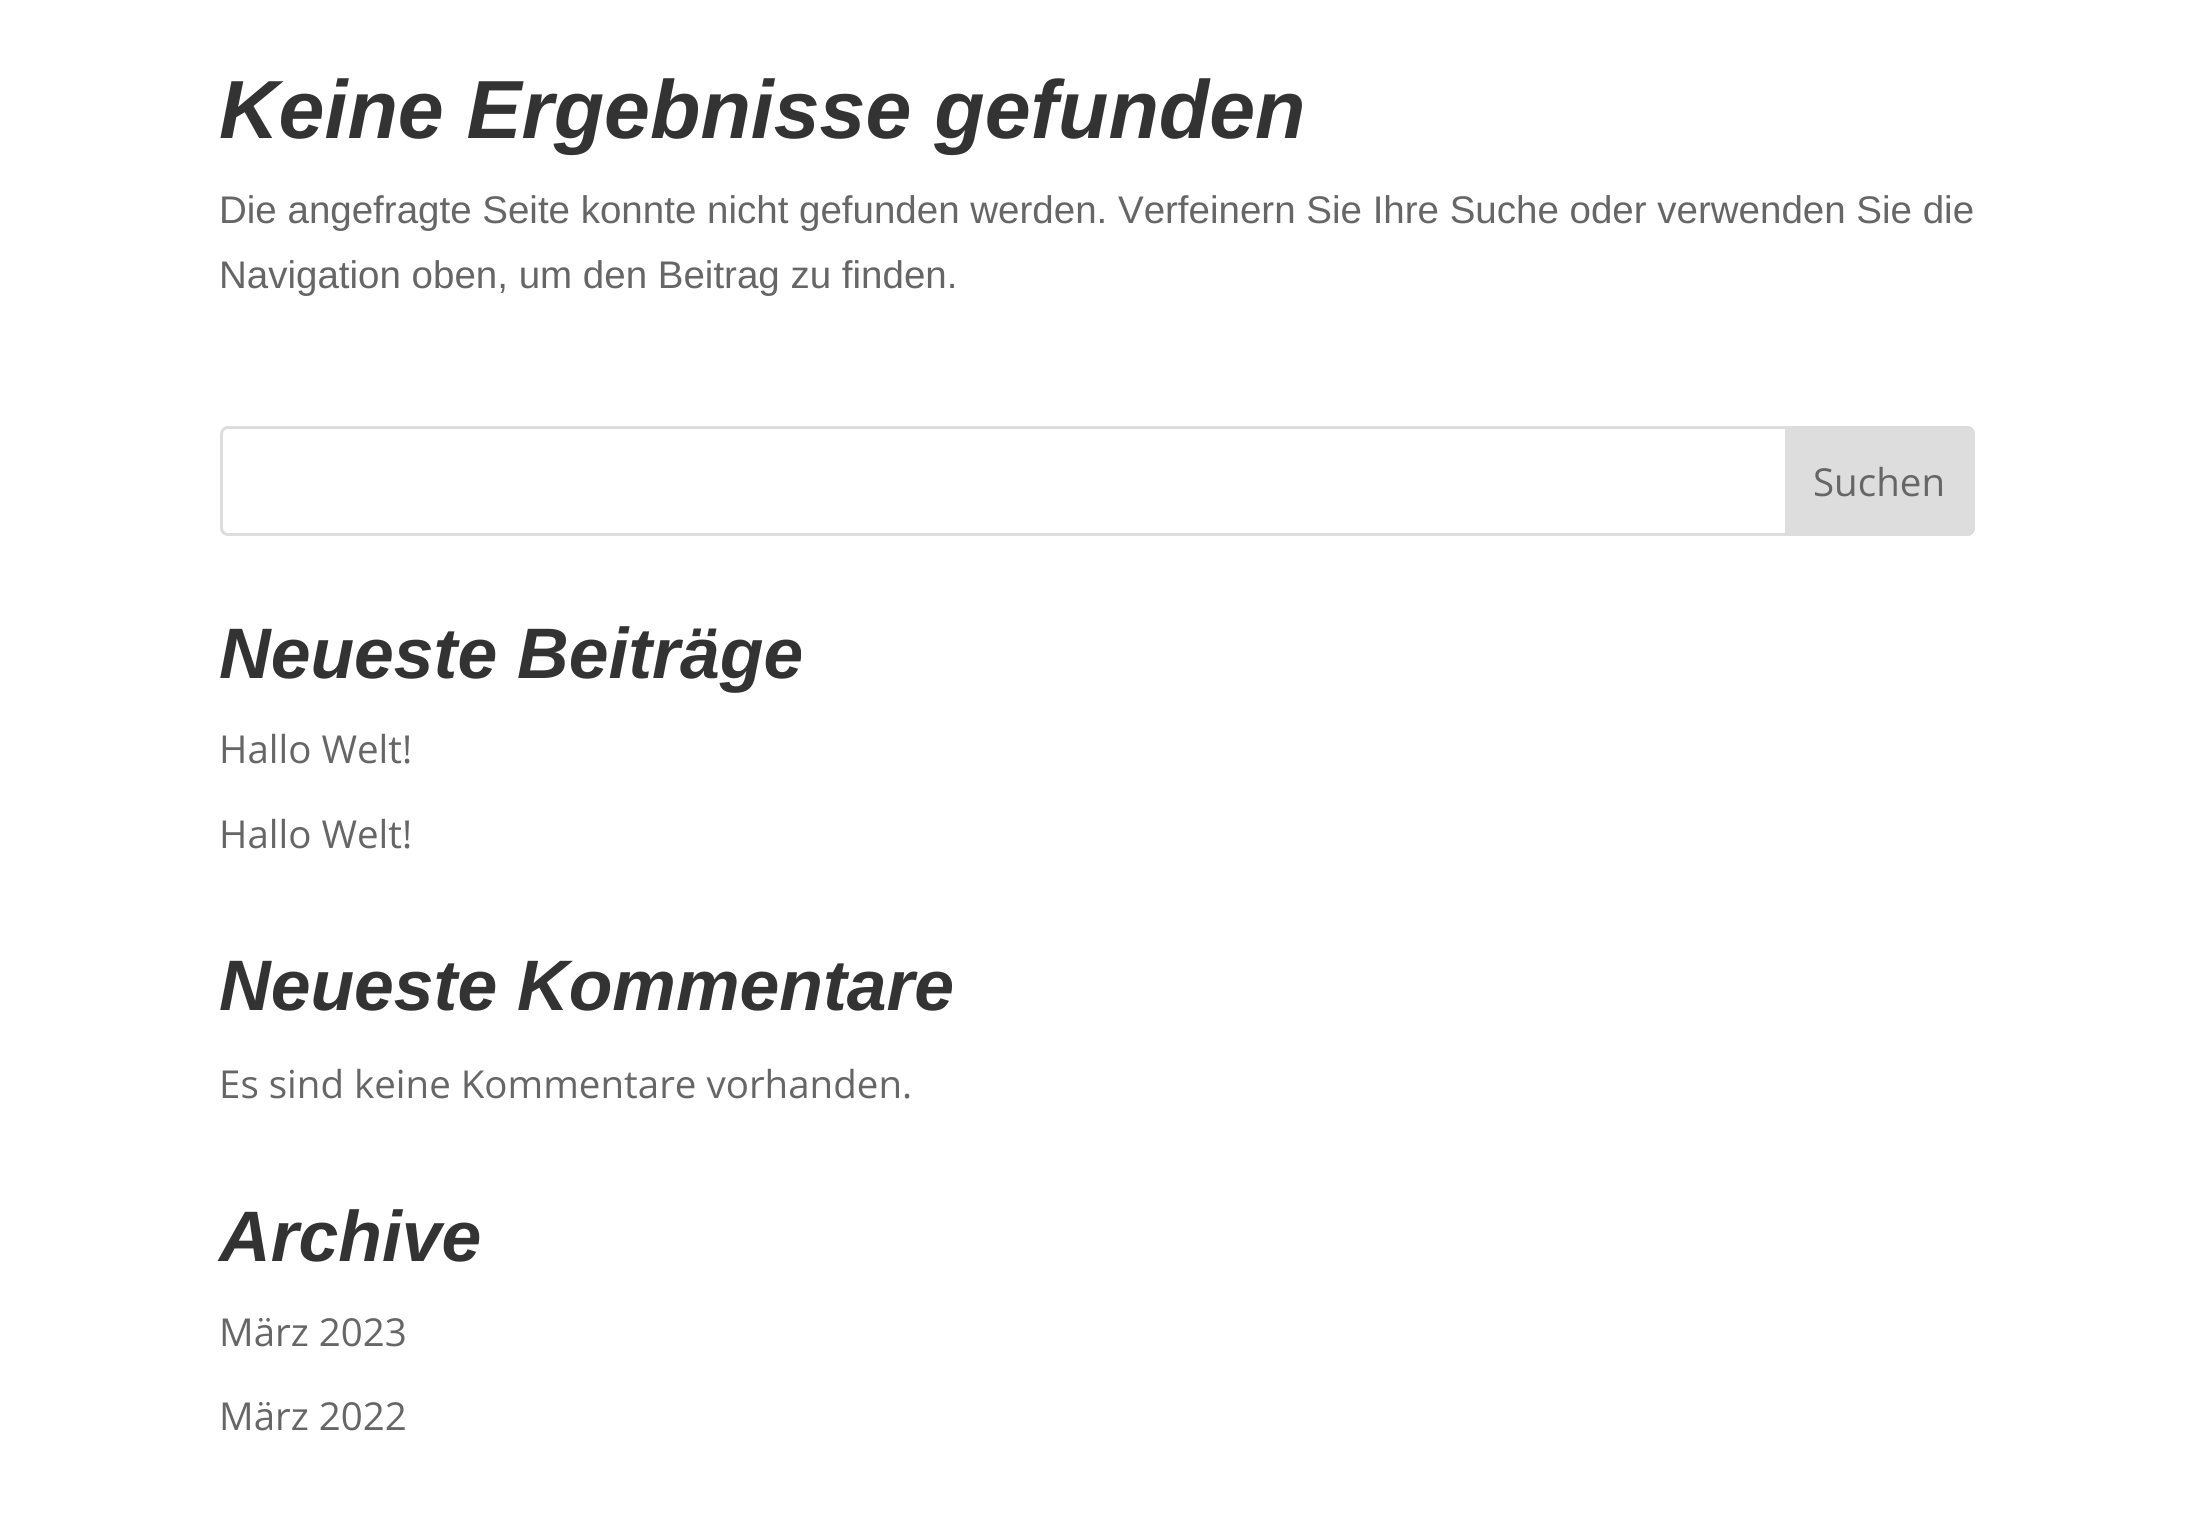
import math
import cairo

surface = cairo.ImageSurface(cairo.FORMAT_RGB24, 2192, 1523)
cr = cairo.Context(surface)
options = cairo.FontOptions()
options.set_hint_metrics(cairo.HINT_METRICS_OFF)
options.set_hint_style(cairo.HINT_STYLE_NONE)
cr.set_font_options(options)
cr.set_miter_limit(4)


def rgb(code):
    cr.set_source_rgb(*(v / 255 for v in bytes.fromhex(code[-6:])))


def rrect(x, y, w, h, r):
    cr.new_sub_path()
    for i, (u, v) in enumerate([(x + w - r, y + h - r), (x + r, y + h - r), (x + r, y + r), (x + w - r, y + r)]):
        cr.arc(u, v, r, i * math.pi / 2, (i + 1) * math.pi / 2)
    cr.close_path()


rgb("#ffffff")
cr.paint()
rrect(221.5, 427.5, 1752, 107, 6.5)
rgb("#dddddd")
cr.set_line_width(3)
cr.stroke()
cr.new_path()
cr.move_to(1786.5, 427.5)
cr.line_to(1967, 427.5)
cr.curve_to(1970.5, 427.5, 1973.5, 430.5, 1973.5, 434)
cr.line_to(1973.5, 528)
cr.curve_to(1973.5, 531.5, 1970.5, 534.5, 1967, 534.5)
cr.line_to(1786.5, 534.5)
cr.close_path()
cr.fill_preserve()
cr.stroke()
cr.select_font_face("Liberation Sans", cairo.FONT_SLANT_ITALIC, cairo.FONT_WEIGHT_BOLD)
cr.set_font_size(82.5)
rgb("#333333")
cr.move_to(219, 138)
cr.show_text("Keine Ergebnisse gefunden")
cr.select_font_face("Liberation Sans")
cr.set_font_size(38.5)
rgb("#666666")
cr.move_to(219, 223)
cr.show_text("Die angefragte Seite konnte nicht gefunden werden. Verfeinern Sie Ihre Suche oder verwenden Sie die")
cr.move_to(219, 288)
cr.show_text("Navigation oben, um den Beitrag zu finden.")
cr.select_font_face("Open Sans")
cr.move_to(1813, 496)
cr.show_text("Suchen")
cr.select_font_face("Liberation Sans", cairo.FONT_SLANT_ITALIC, cairo.FONT_WEIGHT_BOLD)
cr.set_font_size(71.5)
rgb("#333333")
cr.move_to(219, 678)
cr.show_text("Neueste Beiträge")
cr.select_font_face("Open Sans")
cr.set_font_size(38.5)
rgb("#666666")
cr.move_to(219, 763)
cr.show_text("Hallo Welt!")
cr.move_to(219, 848)
cr.show_text("Hallo Welt!")
cr.select_font_face("Liberation Sans", cairo.FONT_SLANT_ITALIC, cairo.FONT_WEIGHT_BOLD)
cr.set_font_size(71.5)
rgb("#333333")
cr.move_to(219, 1010)
cr.show_text("Neueste Kommentare")
cr.select_font_face("Open Sans")
cr.set_font_size(38.5)
rgb("#666666")
cr.move_to(219, 1098)
cr.show_text("Es sind keine Kommentare vorhanden.")
cr.select_font_face("Liberation Sans", cairo.FONT_SLANT_ITALIC, cairo.FONT_WEIGHT_BOLD)
cr.set_font_size(71.5)
rgb("#333333")
cr.move_to(219, 1261)
cr.show_text("Archive")
cr.select_font_face("Open Sans")
cr.set_font_size(38.5)
rgb("#666666")
cr.move_to(219, 1346)
cr.show_text("März 2023")
cr.move_to(219, 1430)
cr.show_text("März 2022")
surface.write_to_png("page.png")
